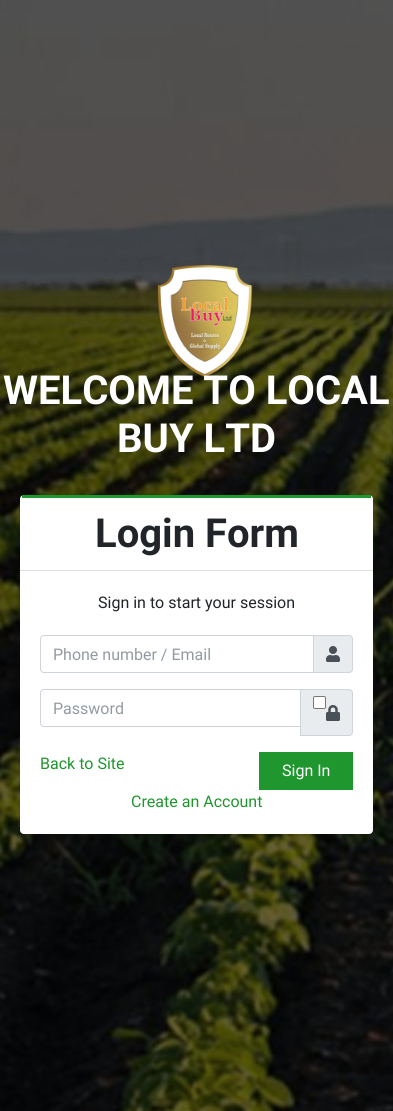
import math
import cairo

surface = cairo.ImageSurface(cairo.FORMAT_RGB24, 393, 1111)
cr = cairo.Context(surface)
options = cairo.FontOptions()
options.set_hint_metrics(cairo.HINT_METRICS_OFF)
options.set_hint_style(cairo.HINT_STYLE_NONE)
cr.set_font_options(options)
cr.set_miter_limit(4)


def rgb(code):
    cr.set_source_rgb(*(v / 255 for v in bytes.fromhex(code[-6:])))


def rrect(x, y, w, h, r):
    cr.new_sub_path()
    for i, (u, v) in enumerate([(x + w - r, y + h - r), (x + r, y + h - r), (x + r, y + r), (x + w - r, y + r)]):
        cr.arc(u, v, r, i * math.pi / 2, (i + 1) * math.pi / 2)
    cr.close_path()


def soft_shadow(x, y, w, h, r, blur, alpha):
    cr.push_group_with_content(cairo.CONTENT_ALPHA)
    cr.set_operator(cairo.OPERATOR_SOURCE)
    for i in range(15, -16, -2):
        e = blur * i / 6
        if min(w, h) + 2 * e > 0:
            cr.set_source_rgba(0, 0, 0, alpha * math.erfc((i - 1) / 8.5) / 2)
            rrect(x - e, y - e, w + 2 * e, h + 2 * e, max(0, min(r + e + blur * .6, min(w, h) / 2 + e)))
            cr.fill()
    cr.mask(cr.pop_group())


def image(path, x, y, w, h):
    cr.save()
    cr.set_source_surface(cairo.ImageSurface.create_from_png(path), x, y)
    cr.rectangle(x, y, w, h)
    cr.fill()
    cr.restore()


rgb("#ffffff")
cr.paint()
image("img/1.png", 0, 0, 393, 1111)
image("img/2.png", 157, 265, 96, 112)
rgb("#000000")
soft_shadow(20, 496, 353, 339, 4, 1.5, 0.2)
rgb("#ffffff")
rrect(20, 495, 353, 339, 4)
cr.fill()
rgb("#1f962e")
cr.rectangle(22, 495, 349, 3)
cr.fill()
rgb("#dfdfdf")
cr.rectangle(20, 570, 353, 1)
cr.fill()
rgb("#e9ecef")
cr.new_path()
cr.move_to(313.5, 635.5)
cr.line_to(349, 635.5)
cr.curve_to(351, 635.5, 352.5, 637, 352.5, 639)
cr.line_to(352.5, 669)
cr.curve_to(352.5, 671, 351, 672.5, 349, 672.5)
cr.line_to(313.5, 672.5)
cr.close_path()
cr.fill_preserve()
rgb("#ced4da")
cr.set_line_width(1)
cr.stroke()
cr.new_path()
cr.move_to(44, 635.5)
cr.line_to(313.5, 635.5)
cr.line_to(313.5, 672.5)
cr.line_to(44, 672.5)
cr.curve_to(42, 672.5, 40.5, 671, 40.5, 669)
cr.line_to(40.5, 639)
cr.curve_to(40.5, 637, 42, 635.5, 44, 635.5)
cr.close_path()
cr.stroke()
image("img/3.png", 326, 646, 14, 16)
rgb("#e9ecef")
cr.new_path()
cr.move_to(300.5, 689.5)
cr.line_to(349, 689.5)
cr.curve_to(351, 689.5, 352.5, 691, 352.5, 693)
cr.line_to(352.5, 732)
cr.curve_to(352.5, 734, 351, 735.5, 349, 735.5)
cr.line_to(300.5, 735.5)
cr.close_path()
cr.fill_preserve()
rgb("#ced4da")
cr.stroke()
cr.new_path()
cr.move_to(44, 689.5)
cr.line_to(300.5, 689.5)
cr.line_to(300.5, 726.5)
cr.line_to(44, 726.5)
cr.curve_to(42, 726.5, 40.5, 725, 40.5, 723)
cr.line_to(40.5, 693)
cr.curve_to(40.5, 691, 42, 689.5, 44, 689.5)
cr.close_path()
cr.stroke()
rgb("#ffffff")
rrect(313.5, 696.5, 12, 12, 1.5)
cr.fill_preserve()
rgb("#767676")
cr.stroke()
image("img/4.png", 326, 705, 14, 16)
rgb("#1f962e")
cr.rectangle(259, 752, 94, 38)
cr.fill()
cr.select_font_face("Roboto", cairo.FONT_SLANT_NORMAL, cairo.FONT_WEIGHT_BOLD)
cr.set_font_size(40)
rgb("#ffffff")
cr.move_to(3, 404)
cr.show_text("WELCOME TO LOCAL")
cr.move_to(117, 452)
cr.show_text("BUY LTD")
rgb("#212529")
cr.move_to(95, 547)
cr.show_text("Login Form")
cr.select_font_face("Roboto")
cr.set_font_size(16)
cr.move_to(98, 608)
cr.show_text("Sign in to start your session")
rgb("#939ba2")
cr.move_to(53, 660)
cr.show_text("Phone number / Email")
cr.move_to(53, 714)
cr.show_text("Password")
rgb("#1f962e")
cr.move_to(40, 769)
cr.show_text("Back to Site")
rgb("#ffffff")
cr.move_to(282, 776)
cr.show_text("Sign In")
rgb("#1f962e")
cr.move_to(131, 807)
cr.show_text("Create an Account")
surface.write_to_png("page.png")
